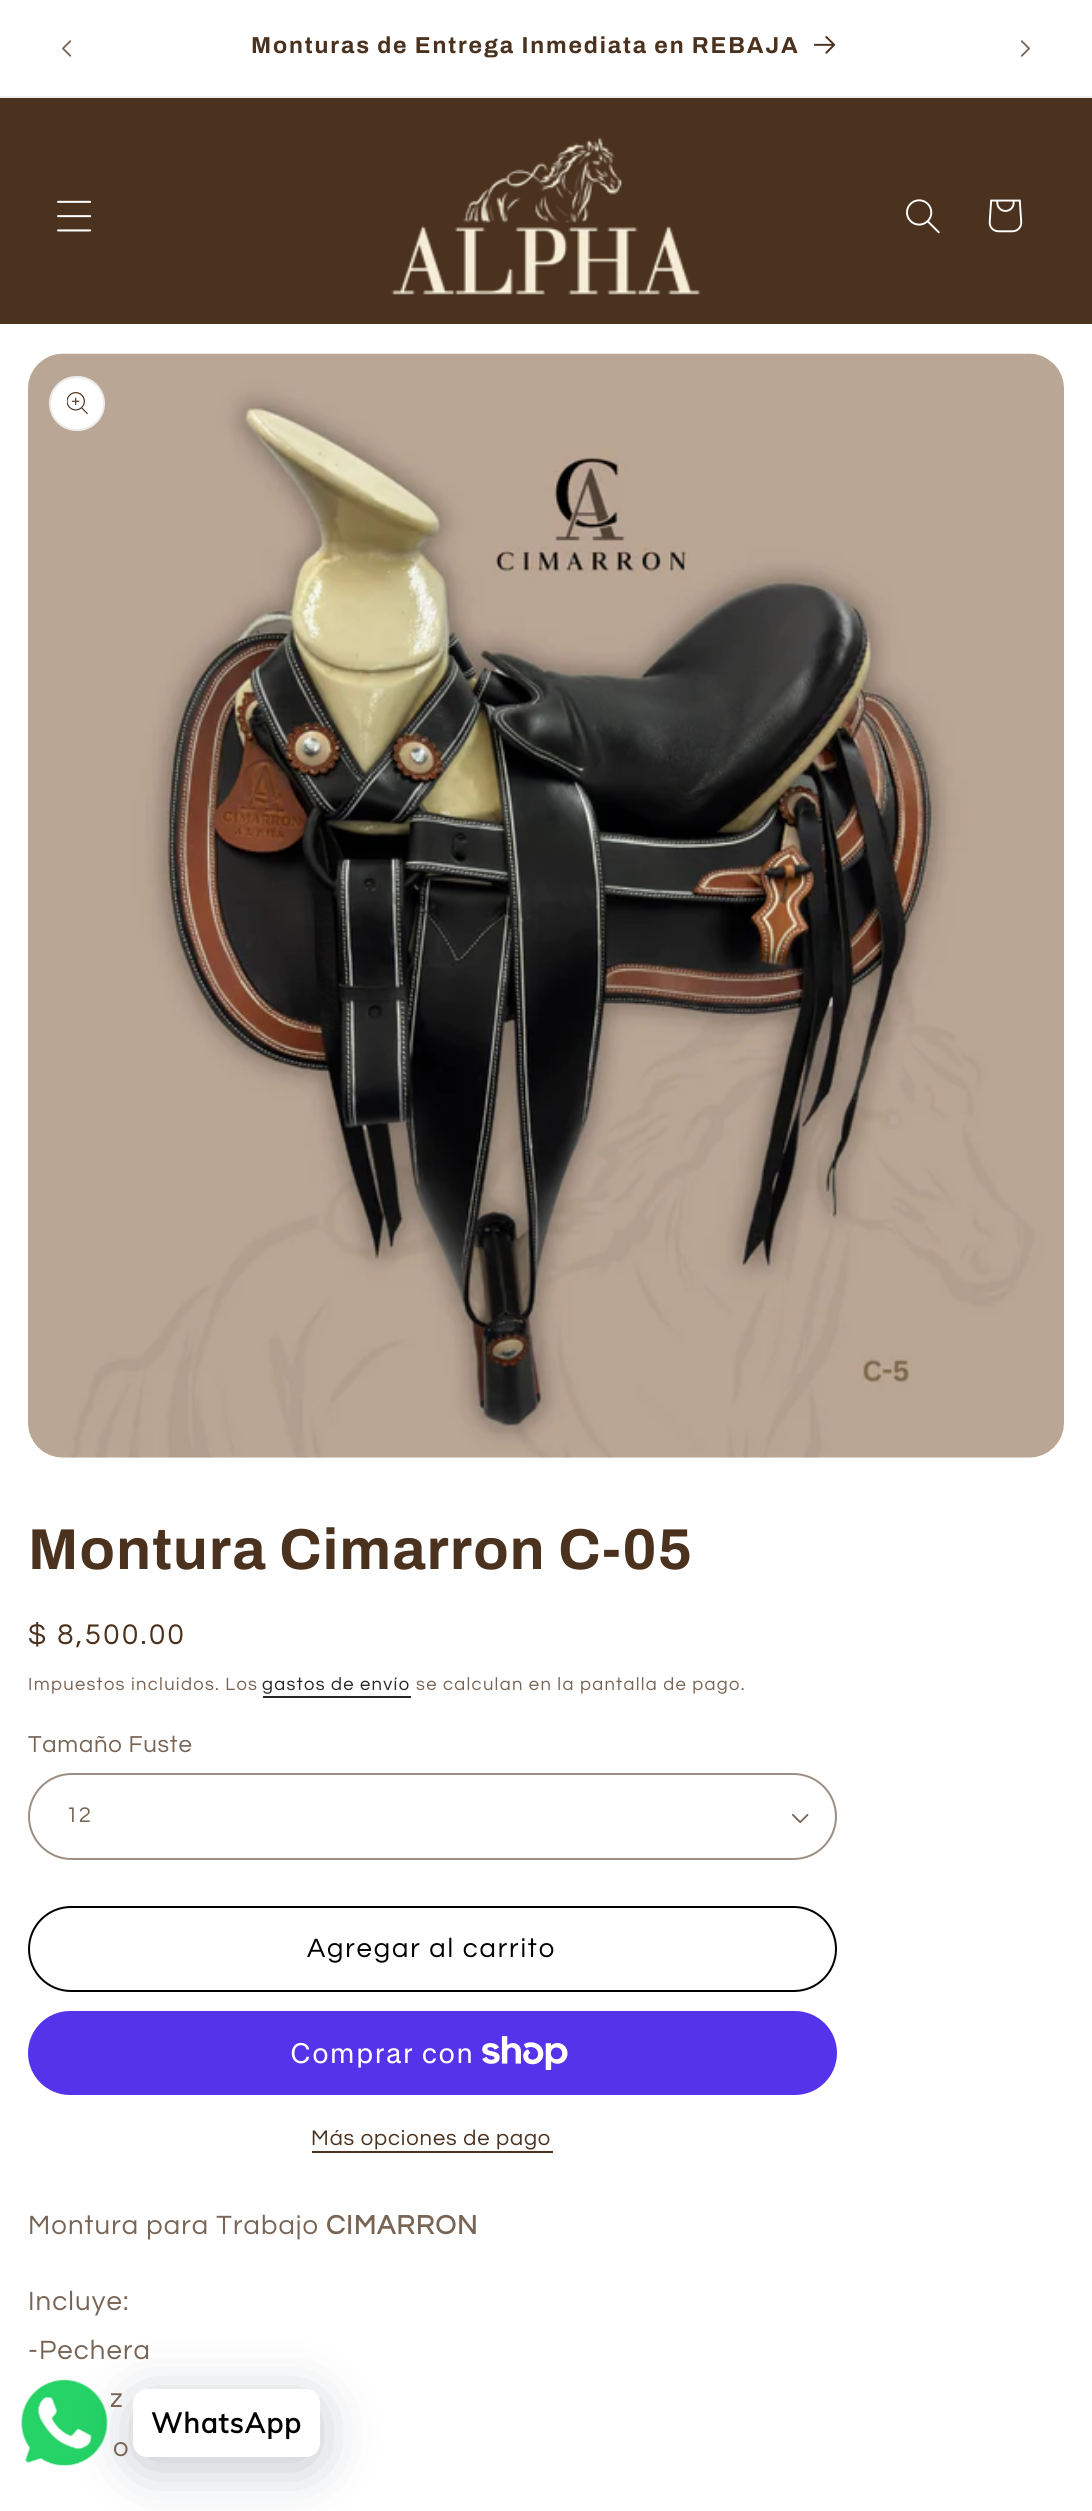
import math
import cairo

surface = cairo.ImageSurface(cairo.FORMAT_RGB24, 1092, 2511)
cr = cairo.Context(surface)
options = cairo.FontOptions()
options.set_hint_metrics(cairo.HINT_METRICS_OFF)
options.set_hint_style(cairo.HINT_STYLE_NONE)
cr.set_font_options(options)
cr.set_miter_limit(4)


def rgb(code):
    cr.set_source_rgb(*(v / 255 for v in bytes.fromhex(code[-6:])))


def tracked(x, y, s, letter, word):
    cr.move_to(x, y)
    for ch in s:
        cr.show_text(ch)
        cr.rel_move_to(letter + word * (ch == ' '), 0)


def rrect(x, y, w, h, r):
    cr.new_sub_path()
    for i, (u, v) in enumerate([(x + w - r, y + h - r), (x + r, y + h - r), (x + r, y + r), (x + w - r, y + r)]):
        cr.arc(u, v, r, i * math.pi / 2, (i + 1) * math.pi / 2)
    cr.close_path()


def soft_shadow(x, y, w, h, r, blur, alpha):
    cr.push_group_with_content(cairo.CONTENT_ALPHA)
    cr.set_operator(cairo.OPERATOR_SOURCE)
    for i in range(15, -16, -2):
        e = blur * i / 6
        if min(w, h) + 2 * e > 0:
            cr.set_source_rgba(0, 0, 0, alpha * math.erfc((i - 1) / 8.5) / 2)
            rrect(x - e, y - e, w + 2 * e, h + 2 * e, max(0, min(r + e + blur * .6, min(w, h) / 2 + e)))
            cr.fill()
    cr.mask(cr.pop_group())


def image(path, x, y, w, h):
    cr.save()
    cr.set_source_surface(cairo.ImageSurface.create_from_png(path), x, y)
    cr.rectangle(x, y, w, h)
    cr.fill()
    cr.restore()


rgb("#ffffff")
cr.paint()
rgb("#f1efed")
cr.rectangle(0, 96, 1092, 2)
cr.fill()
image("img/1.png", 62, 40, 10, 17)
image("img/2.png", 814, 36, 22, 18)
image("img/3.png", 1020, 40, 10, 17)
rgb("#4b321e")
cr.rectangle(0, 98, 1092, 226)
cr.fill()
image("img/4.png", 57, 200, 35, 32)
image("img/5.png", 391, 137, 310, 159)
image("img/6.png", 906, 199, 34, 35)
image("img/7.png", 988, 199, 35, 34)
image("img/8.png", 28, 353, 1036, 1105)
rgb("#ffffff")
rrect(49, 376, 56, 55, 27.5)
cr.fill()
rrect(50, 377, 54, 53, 26.5)
cr.set_source_rgba(0.294, 0.196, 0.118, 0.1)
cr.stroke()
image("img/9.png", 67, 392, 21, 22)
rgb("#262626")
cr.rectangle(263, 1696, 148, 2)
cr.fill()
image("img/10.png", 792, 1814, 17, 9)
rrect(29, 1774, 807, 85, 42.5)
rgb("#9c8e83")
cr.stroke()
rrect(29, 1907, 807, 84, 42)
rgb("#000000")
cr.stroke()
rgb("#5433eb")
rrect(28, 2011, 809, 84, 42)
cr.fill()
image("img/11.png", 482, 2036, 86, 34)
rgb("#4b321e")
cr.rectangle(312, 2151, 241, 2)
cr.fill()
image("img/12.png", 21, 2379, 87, 87)
rgb("#00122e")
soft_shadow(133, 2399, 187, 69, 14, 28, 0.24)
rgb("#ffffff")
rrect(133, 2389, 187, 68, 14)
cr.fill()
cr.select_font_face("Archivo", cairo.FONT_SLANT_NORMAL, cairo.FONT_WEIGHT_BOLD)
cr.set_font_size(23.1)
rgb("#4b321e")
tracked(251, 53, "Monturas de Entrega Inmediata en REBAJA", 1.85, 0)
cr.set_font_size(57.75)
tracked(28, 1569, "Montura Cimarron C-05", 1.2, 0)
cr.select_font_face("Questrial")
cr.set_font_size(29.5)
tracked(28, 1644, "$ 8,500.00", 2.4, 0)
cr.set_font_size(18.4)
rgb("#786556")
tracked(28, 1690, "Impuestos incluidos. Los", 1.3, 0)
rgb("#262626")
tracked(262, 1690, "gastos de envío", 1.3, 0)
rgb("#786556")
tracked(416, 1690, "se calculan en la pantalla de pago.", 1.3, 0)
cr.set_font_size(24)
tracked(28, 1752, "Tamaño Fuste", 0.75, 0)
cr.set_font_size(22)
tracked(66, 1822, "12", 0.75, 0)
cr.set_font_size(27.5)
rgb("#000000")
tracked(307, 1957, "Agregar al carrito", 1.85, 0)
cr.select_font_face("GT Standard")
cr.set_font_size(28)
rgb("#ffffff")
tracked(290, 2063, "Comprar con", 1.1, 0)
cr.select_font_face("Questrial")
cr.set_font_size(22)
rgb("#4b321e")
tracked(311, 2145, "Más opciones de pago", 0.9, 0)
cr.set_font_size(27.5)
rgb("#786556")
tracked(28, 2234, "Montura para Trabajo", 1.1, 0)
cr.select_font_face("Questrial", cairo.FONT_SLANT_NORMAL, cairo.FONT_WEIGHT_BOLD)
tracked(326, 2234, "CIMARRON", 1.1, 0)
cr.select_font_face("Questrial")
for x, y, s in [
    (28, 2310, "Incluye:"),
    (28, 2359, "-Pechera"),
    (110, 2407, "z"),
    (113, 2456, "o"),
]:
    tracked(x, y, s, 1.1, 0)
cr.select_font_face("Muli", cairo.FONT_SLANT_NORMAL, cairo.FONT_WEIGHT_BOLD)
cr.set_font_size(28)
rgb("#000000")
tracked(151, 2433, "WhatsApp", 1.1, 0)
surface.write_to_png("page.png")
